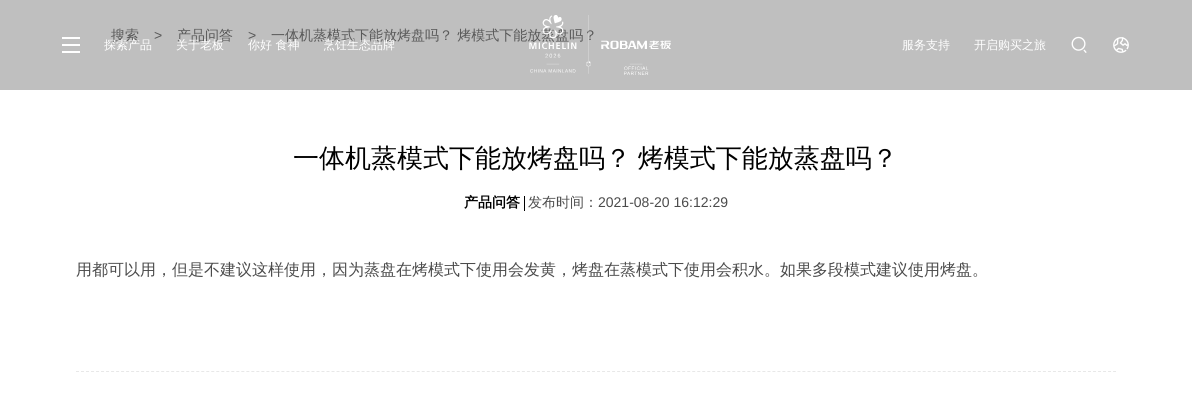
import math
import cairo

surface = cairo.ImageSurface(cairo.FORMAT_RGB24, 1192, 404)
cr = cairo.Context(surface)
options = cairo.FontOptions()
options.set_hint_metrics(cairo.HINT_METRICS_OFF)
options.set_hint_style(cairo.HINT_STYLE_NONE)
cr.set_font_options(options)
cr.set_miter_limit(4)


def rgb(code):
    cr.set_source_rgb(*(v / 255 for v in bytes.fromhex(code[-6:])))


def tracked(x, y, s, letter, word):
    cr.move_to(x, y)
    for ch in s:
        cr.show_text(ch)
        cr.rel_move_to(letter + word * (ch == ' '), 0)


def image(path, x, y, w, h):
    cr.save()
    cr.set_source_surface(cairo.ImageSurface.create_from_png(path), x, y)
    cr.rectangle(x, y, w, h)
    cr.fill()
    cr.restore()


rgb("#ffffff")
cr.paint()
for x, y, w, h, color in [
    (0, 0, 1192, 90, "#bfbfbf"),
    (62, 37, 18, 2, "#ffffff"),
    (62, 44, 18, 2, "#ffffff"),
    (62, 51, 18, 2, "#ffffff"),
]:
    rgb(color)
    cr.rectangle(x, y, w, h)
    cr.fill()
image("img/2.png", 1071, 36, 16, 17)
image("img/3.png", 1113, 37, 16, 16)
rgb("#000000")
cr.rectangle(524, 196, 1, 15)
cr.fill()
cr.new_path()
cr.move_to(76, 371.5)
cr.line_to(1116, 371.5)
rgb("#e8e8e8")
cr.set_line_width(1)
cr.set_dash([3, 2.01])
cr.stroke()
cr.select_font_face("WenQuanYi Zen Hei Medium")
cr.set_font_size(14)
rgb("#595959")
cr.move_to(111, 40)
cr.show_text("搜索")
cr.select_font_face("Liberation Sans")
cr.move_to(154, 40)
cr.show_text(">")
cr.select_font_face("WenQuanYi Zen Hei Medium")
cr.move_to(177, 40)
cr.show_text("产品问答")
cr.select_font_face("Liberation Sans")
cr.move_to(248, 40)
cr.show_text(">")
cr.select_font_face("WenQuanYi Zen Hei Medium")
cr.move_to(271, 40)
cr.show_text("一体机蒸模式下能放烤盘吗？ 烤模式下能放蒸盘吗？")
cr.set_font_size(12)
rgb("#ffffff")
for x, y, s in [
    (104, 49, "探索产品"),
    (176, 49, "关于老板"),
    (248, 49, "你好 食神"),
    (323, 49, "烹饪生态品牌"),
]:
    cr.move_to(x, y)
    cr.show_text(s)
image("img/1.png", 529, 15, 142, 60)
cr.move_to(902, 49)
cr.show_text("服务支持")
cr.move_to(974, 49)
cr.show_text("开启购买之旅")
cr.set_font_size(26)
rgb("#000000")
tracked(293, 167, "一体机蒸模式下能放烤盘吗？ 烤模式下能放蒸盘吗？", 0, -1)
cr.select_font_face("WenQuanYi Zen Hei", cairo.FONT_SLANT_NORMAL, cairo.FONT_WEIGHT_BOLD)
cr.set_font_size(14)
cr.move_to(464, 207)
cr.show_text("产品问答")
cr.select_font_face("WenQuanYi Zen Hei Medium")
rgb("#4b4b4b")
cr.move_to(528, 207)
cr.show_text("发布时间：")
cr.select_font_face("Liberation Sans")
cr.move_to(598, 207)
cr.show_text("2021-08-20 16:12:29")
cr.select_font_face("WenQuanYi Zen Hei Medium")
cr.set_font_size(16)
cr.move_to(76, 275)
cr.show_text("用都可以用，但是不建议这样使用，因为蒸盘在烤模式下使用会发黄，烤盘在蒸模式下使用会积水。如果多段模式建议使用烤盘。")
surface.write_to_png("page.png")
